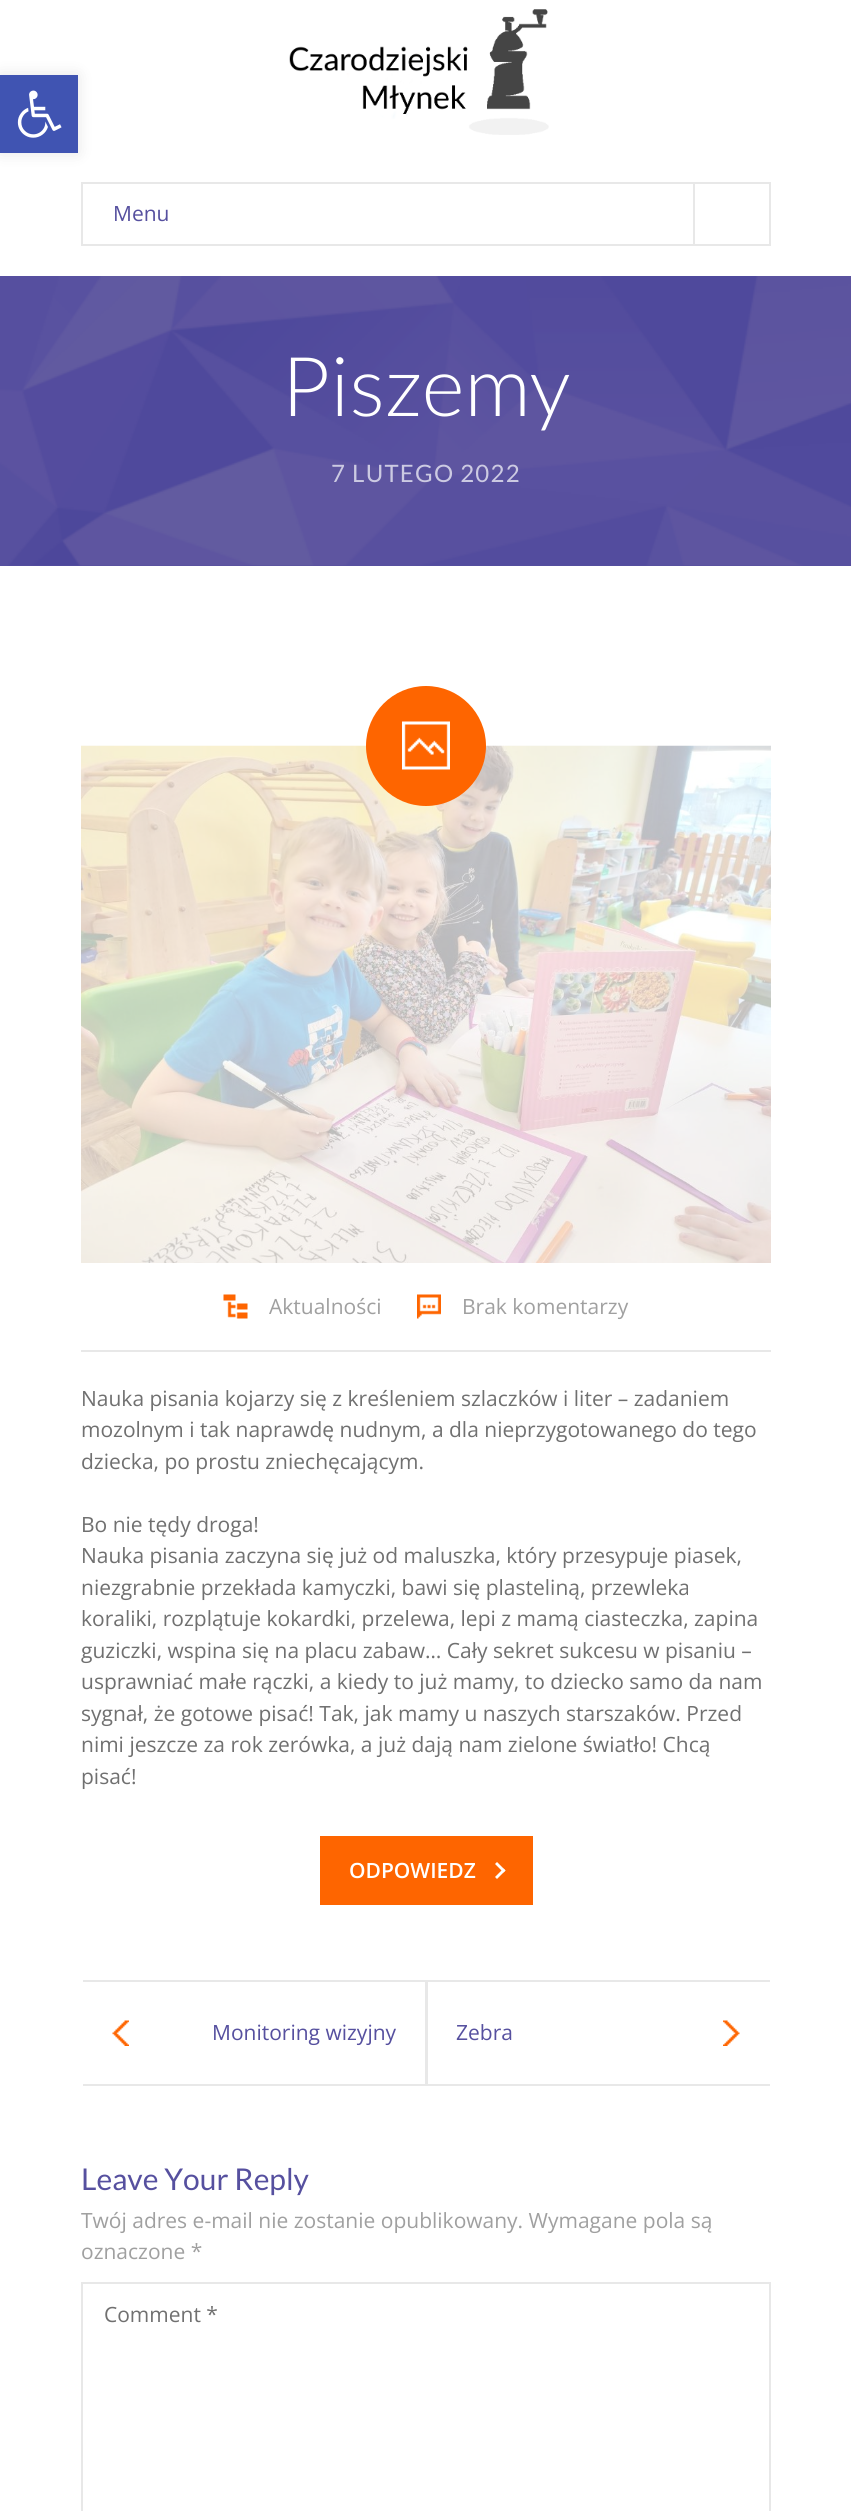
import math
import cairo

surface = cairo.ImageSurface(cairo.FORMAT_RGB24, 851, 2511)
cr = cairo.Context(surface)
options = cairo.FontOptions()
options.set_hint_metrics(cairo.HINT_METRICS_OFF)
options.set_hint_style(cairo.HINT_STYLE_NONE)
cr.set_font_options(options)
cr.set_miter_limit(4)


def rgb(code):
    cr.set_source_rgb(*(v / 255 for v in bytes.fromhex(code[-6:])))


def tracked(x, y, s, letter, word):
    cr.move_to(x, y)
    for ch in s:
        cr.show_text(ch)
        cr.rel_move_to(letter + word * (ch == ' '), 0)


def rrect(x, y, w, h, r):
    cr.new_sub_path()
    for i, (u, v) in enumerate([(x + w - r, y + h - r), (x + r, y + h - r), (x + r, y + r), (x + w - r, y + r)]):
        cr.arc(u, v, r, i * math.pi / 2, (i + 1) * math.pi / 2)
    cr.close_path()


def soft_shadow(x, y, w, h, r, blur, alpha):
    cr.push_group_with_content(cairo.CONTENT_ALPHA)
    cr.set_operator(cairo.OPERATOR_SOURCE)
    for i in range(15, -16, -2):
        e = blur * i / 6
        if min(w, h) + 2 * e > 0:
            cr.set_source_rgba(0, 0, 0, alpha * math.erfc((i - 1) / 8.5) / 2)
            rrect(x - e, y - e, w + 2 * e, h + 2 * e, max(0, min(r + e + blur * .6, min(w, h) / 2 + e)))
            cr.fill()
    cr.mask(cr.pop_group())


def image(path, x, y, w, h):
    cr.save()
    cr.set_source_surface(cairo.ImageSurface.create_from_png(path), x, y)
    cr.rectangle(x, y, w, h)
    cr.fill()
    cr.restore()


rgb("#ffffff")
cr.paint()
rgb("#000000")
soft_shadow(0, 75, 78, 78, 0, 7.5, 0.1)
rgb("#4054b2")
cr.rectangle(0, 75, 78, 78)
cr.fill()
image("img/1.png", 17, 90, 45, 48)
image("img/2.png", 289, 9, 260, 126)
cr.rectangle(82, 183, 688, 62)
rgb("#e8e8e8")
cr.stroke()
cr.rectangle(693, 183, 2, 62)
cr.fill()
rgb("#56509f")
cr.rectangle(0, 565, 851, 1)
cr.fill()
image("img/3.png", 0, 276, 851, 290)
image("img/5.png", 81, 745, 690, 518)
rgb("#fe6500")
cr.arc(426, 746, 60, 0, 2 * math.pi)
cr.fill()
image("img/4.png", 402, 721, 48, 49)
rgb("#e8e8e8")
cr.rectangle(81, 1350, 690, 2)
cr.fill()
image("img/6.png", 223, 1294, 25, 25)
image("img/7.png", 417, 1294, 24, 25)
rgb("#fe6500")
cr.rectangle(320, 1836, 213, 69)
cr.fill()
rgb("#ffffff")
cr.new_path()
cr.move_to(497, 1862)
cr.line_to(505.5, 1870.5)
cr.line_to(503.5, 1872.5)
cr.line_to(495, 1864)
cr.close_path()
cr.fill()
cr.new_path()
cr.move_to(503.5, 1868.5)
cr.line_to(505.5, 1870.5)
cr.line_to(497, 1879)
cr.line_to(495, 1877)
cr.close_path()
cr.fill()
for x, y, w, h, color in [
    (83, 1980, 345, 2, "#e8e8e8"),
    (427, 1980, 1, 105, "#e8e8e8"),
    (83, 2084, 687, 2, "#e8e8e8"),
]:
    rgb(color)
    cr.rectangle(x, y, w, h)
    cr.fill()
image("img/8.png", 112, 2020, 17, 26)
cr.rectangle(425, 1980, 345, 2)
cr.fill()
cr.rectangle(425, 1980, 2, 105)
cr.fill()
image("img/9.png", 723, 2020, 17, 26)
cr.rectangle(82, 2283, 688, 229)
cr.stroke()
cr.select_font_face("Open Sans")
cr.set_font_size(21)
rgb("#56509f")
cr.move_to(113, 221)
cr.show_text("Menu")
cr.select_font_face("Lato Light")
cr.set_font_size(82.5)
rgb("#ffffff")
cr.move_to(281, 416)
cr.show_text("Piszemy")
cr.select_font_face("Lato")
cr.set_font_size(24)
rgb("#cccae2")
tracked(331, 482, "7 LUTEGO 2022", 1.25, 0)
cr.select_font_face("Open Sans")
cr.set_font_size(21)
rgb("#a0a0a0")
cr.move_to(269, 1314)
cr.show_text("Aktualności")
cr.move_to(462, 1314)
cr.show_text("Brak komentarzy")
rgb("#707070")
for x, y, s in [
    (81, 1406, "Nauka pisania kojarzy się z kreśleniem szlaczków i liter – zadaniem"),
    (81, 1437, "mozolnym i tak naprawdę nudnym, a dla nieprzygotowanego do tego"),
    (81, 1469, "dziecka, po prostu zniechęcającym."),
    (81, 1532, "Bo nie tędy droga!"),
    (81, 1563, "Nauka pisania zaczyna się już od maluszka, który przesypuje piasek,"),
    (81, 1595, "niezgrabnie przekłada kamyczki, bawi się plasteliną, przewleka"),
    (81, 1626, "koraliki, rozplątuje kokardki, przelewa, lepi z mamą ciasteczka, zapina"),
    (81, 1658, "guziczki, wspina się na placu zabaw… Cały sekret sukcesu w pisaniu –"),
    (81, 1689, "usprawniać małe rączki, a kiedy to już mamy, to dziecko samo da nam"),
    (81, 1721, "sygnał, że gotowe pisać! Tak, jak mamy u naszych starszaków. Przed"),
    (81, 1752, "nimi jeszcze za rok zerówka, a już dają nam zielone światło! Chcą"),
    (81, 1784, "pisać!"),
]:
    cr.move_to(x, y)
    cr.show_text(s)
cr.select_font_face("Open Sans SemiBold")
rgb("#ffffff")
cr.move_to(349, 1878)
cr.show_text("ODPOWIEDZ")
cr.select_font_face("Open Sans")
rgb("#56509f")
cr.move_to(212, 2040)
cr.show_text("Monitoring wizyjny")
cr.move_to(456, 2040)
cr.show_text("Zebra")
cr.select_font_face("Lato")
cr.set_font_size(30)
cr.move_to(81, 2190)
cr.show_text("Leave Your Reply")
cr.select_font_face("Open Sans")
cr.set_font_size(21)
rgb("#a0a0a0")
cr.move_to(81, 2228)
cr.show_text("Twój adres e-mail nie zostanie opublikowany. Wymagane pola są")
cr.move_to(81, 2259)
cr.show_text("oznaczone *")
rgb("#707070")
cr.move_to(104, 2322)
cr.show_text("Comment *")
surface.write_to_png("page.png")
